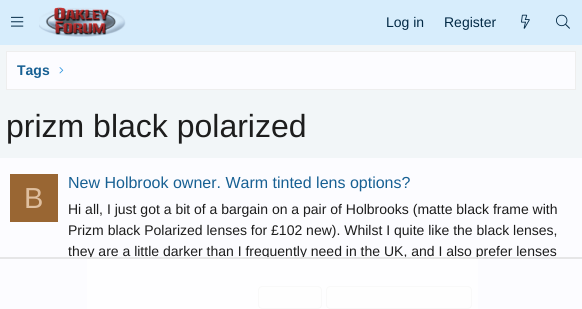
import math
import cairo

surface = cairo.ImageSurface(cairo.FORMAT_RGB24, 582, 309)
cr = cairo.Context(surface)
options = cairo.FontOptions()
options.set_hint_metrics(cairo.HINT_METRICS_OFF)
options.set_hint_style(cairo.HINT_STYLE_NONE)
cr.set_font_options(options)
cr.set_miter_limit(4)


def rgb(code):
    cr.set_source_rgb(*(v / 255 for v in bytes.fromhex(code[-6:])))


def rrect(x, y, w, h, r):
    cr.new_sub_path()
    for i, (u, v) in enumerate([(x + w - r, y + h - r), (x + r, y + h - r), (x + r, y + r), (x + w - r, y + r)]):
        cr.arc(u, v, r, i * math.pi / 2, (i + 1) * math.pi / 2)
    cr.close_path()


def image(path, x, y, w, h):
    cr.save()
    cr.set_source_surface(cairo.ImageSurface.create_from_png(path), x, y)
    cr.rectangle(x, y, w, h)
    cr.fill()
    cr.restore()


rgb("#f2f6f8")
cr.paint()
rgb("#d7edfc")
cr.rectangle(0, 0, 582, 45)
cr.fill()
image("img/1.png", 11, 16, 13, 11)
image("img/2.png", 39, 7, 87, 30)
image("img/3.png", 521, 14, 9, 15)
image("img/4.png", 556, 14, 14, 15)
rgb("#fcfcff")
cr.rectangle(6.5, 51.5, 569, 38)
cr.fill_preserve()
rgb("#eeeeee")
cr.set_line_width(1)
cr.stroke()
image("img/5.png", 59, 67, 5, 7)
rgb("#fcfcff")
cr.rectangle(0, 158, 582, 151)
cr.fill()
rgb("#996633")
cr.rectangle(10, 174, 48, 48)
cr.fill()
rgb("#f9f9f9")
rrect(258.5, 286.5, 63, 22, 3.5)
cr.fill_preserve()
rgb("#dfdfdf")
cr.stroke()
rgb("#f9f9f9")
rrect(326.5, 286.5, 145, 22, 3.5)
cr.fill_preserve()
rgb("#dfdfdf")
cr.stroke()
cr.select_font_face("Liberation Sans")
cr.set_font_size(14)
rgb("#032a46")
cr.move_to(386, 27)
cr.show_text("Log in")
cr.move_to(444, 27)
cr.show_text("Register")
cr.select_font_face("Liberation Sans", cairo.FONT_SLANT_NORMAL, cairo.FONT_WEIGHT_BOLD)
rgb("#176093")
cr.move_to(17, 75)
cr.show_text("Tags")
cr.select_font_face("Liberation Sans")
cr.set_font_size(32)
rgb("#1d1d1d")
cr.move_to(6, 137)
cr.show_text("prizm black polarized")
cr.set_font_size(29)
rgb("#dfbf9f")
cr.move_to(24, 208)
cr.show_text("B")
cr.set_font_size(16)
rgb("#176093")
cr.move_to(68, 188)
cr.show_text("New Holbrook owner. Warm tinted lens options?")
cr.set_font_size(14)
rgb("#1d1d1d")
for x, y, s in [
    (68, 214, "Hi all, I just got a bit of a bargain on a pair of Holbrooks (matte black frame with"),
    (68, 235, "Prizm black Polarized lenses for £102 new). Whilst I quite like the black lenses,"),
    (68, 256, "they are a little darker than I frequently need in the UK, and I also prefer lenses"),
]:
    cr.move_to(x, y)
    cr.show_text(s)
cr.set_source_rgba(1, 1, 1, 0.8)
cr.rectangle(87, 257, 391, 52)
cr.fill()
cr.set_source_rgba(0.882, 0.882, 0.882, 0.8)
cr.rectangle(0, 257, 582, 2)
cr.fill()
surface.write_to_png("page.png")
